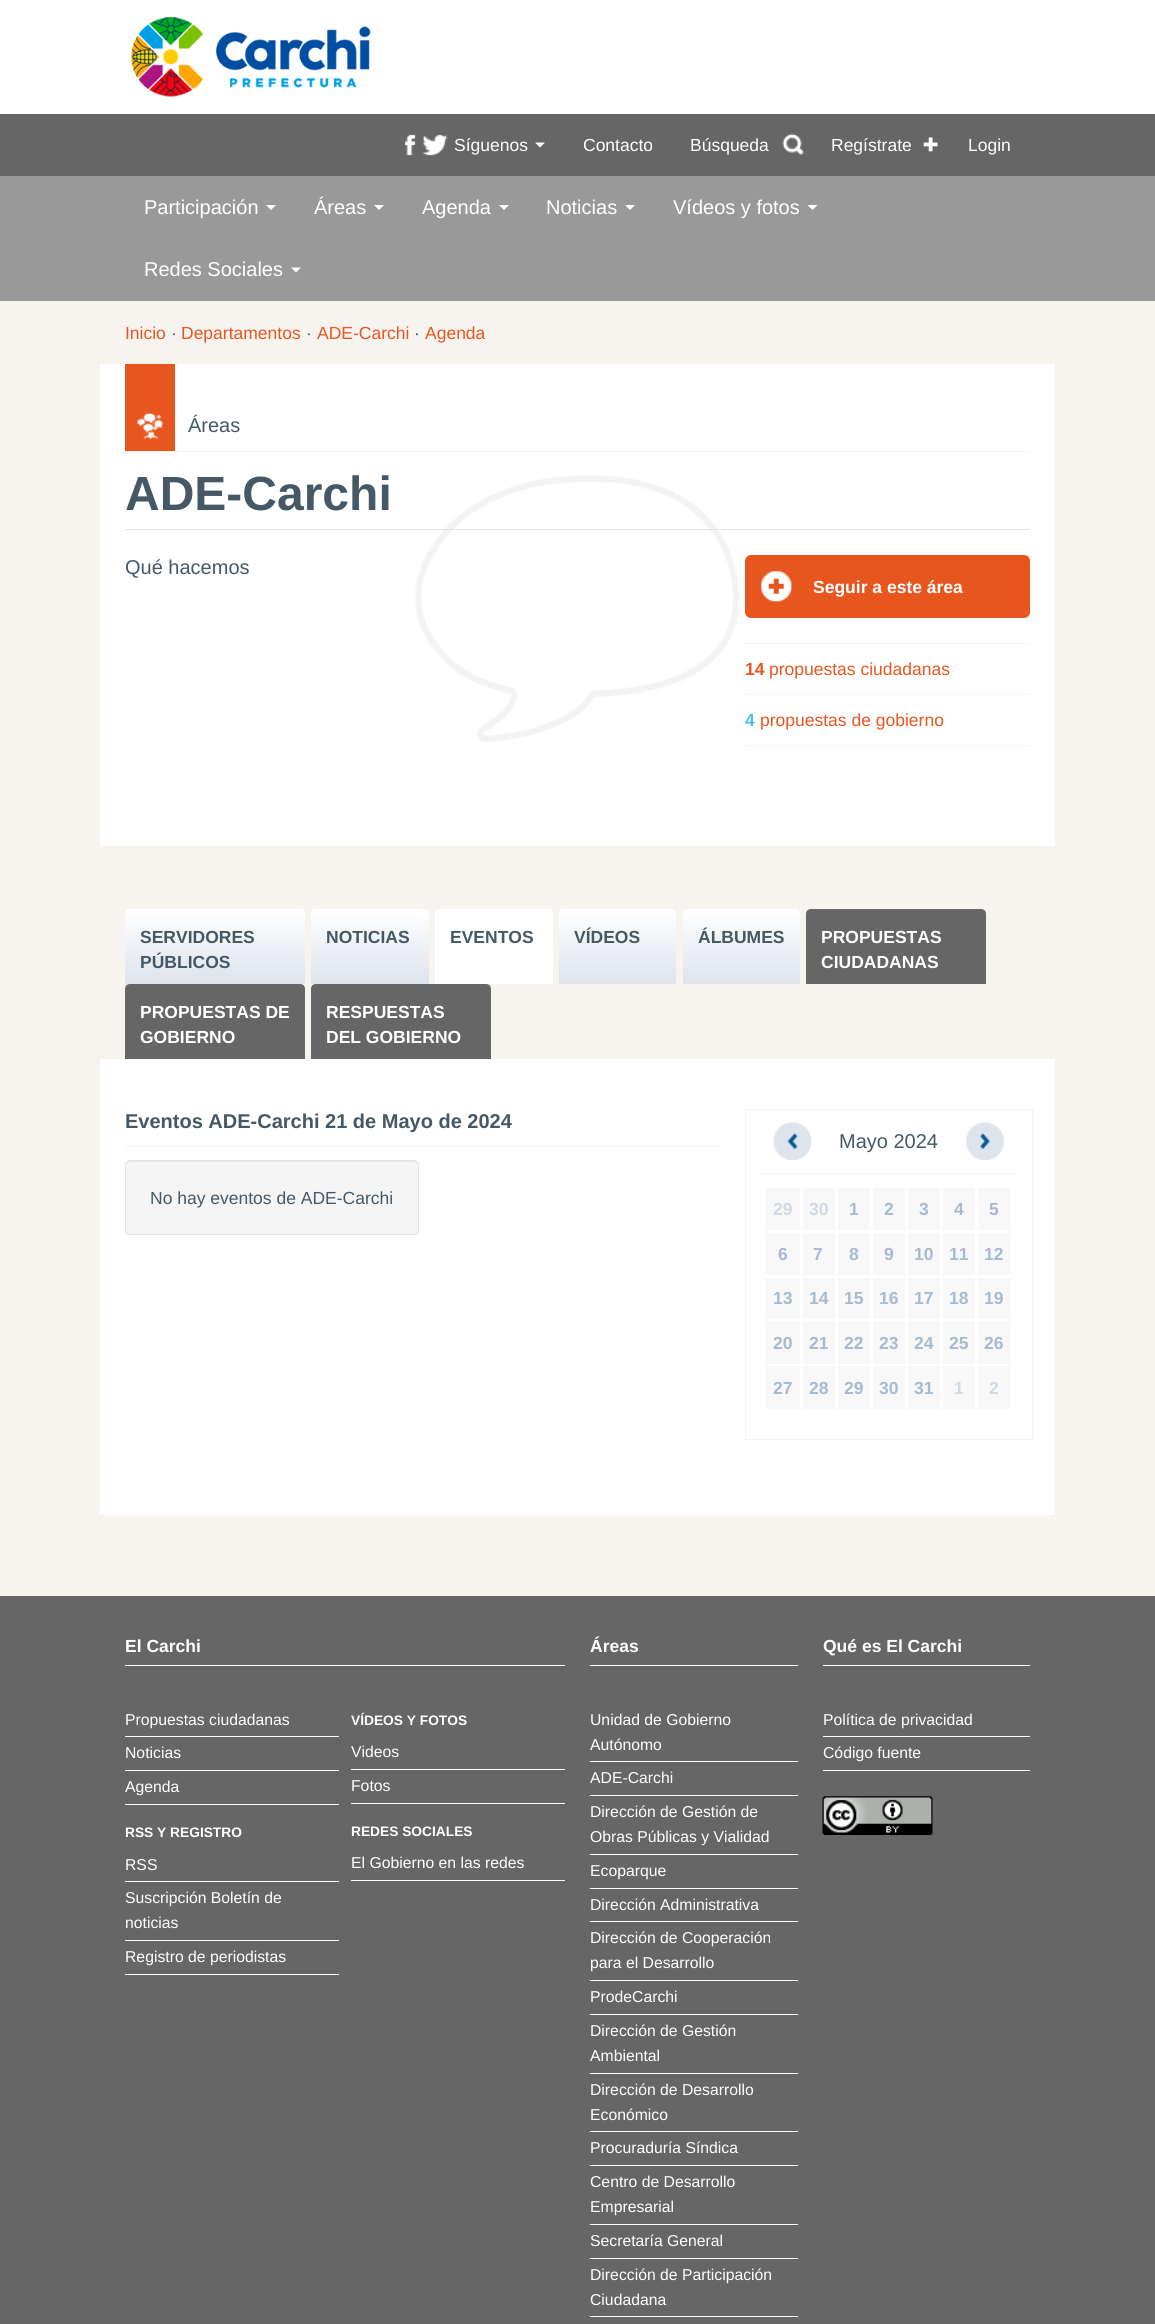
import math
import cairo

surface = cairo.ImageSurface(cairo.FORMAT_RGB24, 1155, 2324)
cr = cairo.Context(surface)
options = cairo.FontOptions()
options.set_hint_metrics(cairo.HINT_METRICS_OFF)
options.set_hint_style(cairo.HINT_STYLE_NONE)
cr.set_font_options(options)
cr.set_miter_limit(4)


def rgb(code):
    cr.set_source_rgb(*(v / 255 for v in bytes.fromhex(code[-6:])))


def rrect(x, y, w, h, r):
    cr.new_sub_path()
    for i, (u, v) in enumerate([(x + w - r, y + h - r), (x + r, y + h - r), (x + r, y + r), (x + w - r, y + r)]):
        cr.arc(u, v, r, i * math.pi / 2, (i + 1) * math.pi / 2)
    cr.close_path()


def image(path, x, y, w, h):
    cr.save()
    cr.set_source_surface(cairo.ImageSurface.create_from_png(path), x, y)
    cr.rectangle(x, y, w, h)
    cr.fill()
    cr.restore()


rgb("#ffffff")
cr.paint()
image("img/1.png", 131, 17, 240, 80)
rgb("#666666")
cr.rectangle(0, 114, 1155, 62)
cr.fill()
image("img/2.png", 404, 134, 44, 22)
rgb("#ffffff")
cr.new_path()
cr.move_to(535, 142.5)
cr.line_to(545, 142.5)
cr.line_to(540, 147.5)
cr.close_path()
cr.fill()
image("img/3.png", 782, 133, 22, 23)
image("img/4.png", 923, 137, 15, 15)
rgb("#999999")
cr.rectangle(0, 176, 1155, 125)
cr.fill()
rgb("#ffffff")
cr.new_path()
cr.move_to(266, 205)
cr.line_to(276, 205)
cr.line_to(271, 210)
cr.close_path()
cr.fill()
cr.new_path()
cr.move_to(374, 205)
cr.line_to(384, 205)
cr.line_to(379, 210)
cr.close_path()
cr.fill()
cr.new_path()
cr.move_to(499, 205)
cr.line_to(509, 205)
cr.line_to(504, 210)
cr.close_path()
cr.fill()
cr.new_path()
cr.move_to(625, 205)
cr.line_to(635, 205)
cr.line_to(630, 210)
cr.close_path()
cr.fill()
cr.new_path()
cr.move_to(807.5, 205)
cr.line_to(817.5, 205)
cr.line_to(812.5, 210)
cr.close_path()
cr.fill()
cr.new_path()
cr.move_to(291, 267.5)
cr.line_to(301, 267.5)
cr.line_to(296, 272.5)
cr.close_path()
cr.fill()
rgb("#f7f4f0")
cr.rectangle(0, 301, 1155, 1295)
cr.fill()
rgb("#ffffff")
cr.rectangle(100, 364, 955, 482)
cr.fill()
image("img/5.png", 415, 475, 325, 267)
rgb("#f7f4f0")
cr.rectangle(125, 451, 905, 1)
cr.fill()
rgb("#e8561f")
cr.rectangle(125, 364, 50, 87)
cr.fill()
image("img/6.png", 137, 413, 26, 26)
rgb("#dde4ec")
cr.rectangle(125, 529, 905, 1)
cr.fill()
rgb("#e8561f")
rrect(745, 555, 285, 63, 6)
cr.fill()
image("img/7.png", 761, 571, 31, 31)
for x, y, w, h, color in [
    (745, 643, 285, 1, "#f7f4f0"),
    (745, 694, 285, 1, "#f7f4f0"),
    (745, 745, 285, 1, "#f7f4f0"),
]:
    rgb(color)
    cr.rectangle(x, y, w, h)
    cr.fill()
gradient = cairo.LinearGradient(215, 909, 215, 984)
gradient.add_color_stop_rgba(0, 1, 1, 1, 1)
gradient.add_color_stop_rgba(1, 0.867, 0.894, 0.925, 1)
cr.set_source(gradient)
cr.new_path()
cr.move_to(130, 909)
cr.line_to(300, 909)
cr.curve_to(303, 909, 305, 911, 305, 914)
cr.line_to(305, 984)
cr.line_to(125, 984)
cr.line_to(125, 914)
cr.curve_to(125, 911, 127, 909, 130, 909)
cr.close_path()
cr.fill()
gradient = cairo.LinearGradient(370, 909, 370, 984)
gradient.add_color_stop_rgba(0, 1, 1, 1, 1)
gradient.add_color_stop_rgba(1, 0.867, 0.894, 0.925, 1)
cr.set_source(gradient)
cr.new_path()
cr.move_to(316, 909)
cr.line_to(424, 909)
cr.curve_to(427, 909, 429, 911, 429, 914)
cr.line_to(429, 984)
cr.line_to(311, 984)
cr.line_to(311, 914)
cr.curve_to(311, 911, 313, 909, 316, 909)
cr.close_path()
cr.fill()
rgb("#ffffff")
cr.new_path()
cr.move_to(440, 909)
cr.line_to(548, 909)
cr.curve_to(551, 909, 553, 911, 553, 914)
cr.line_to(553, 984)
cr.line_to(435, 984)
cr.line_to(435, 914)
cr.curve_to(435, 911, 437, 909, 440, 909)
cr.close_path()
cr.fill()
gradient = cairo.LinearGradient(618, 909, 618, 984)
gradient.add_color_stop_rgba(0, 1, 1, 1, 1)
gradient.add_color_stop_rgba(1, 0.867, 0.894, 0.925, 1)
cr.set_source(gradient)
cr.new_path()
cr.move_to(564, 909)
cr.line_to(671, 909)
cr.curve_to(674, 909, 676, 911, 676, 914)
cr.line_to(676, 984)
cr.line_to(559, 984)
cr.line_to(559, 914)
cr.curve_to(559, 911, 561, 909, 564, 909)
cr.close_path()
cr.fill()
gradient = cairo.LinearGradient(741, 909, 741, 984)
gradient.add_color_stop_rgba(0, 1, 1, 1, 1)
gradient.add_color_stop_rgba(1, 0.867, 0.894, 0.925, 1)
cr.set_source(gradient)
cr.new_path()
cr.move_to(688, 909)
cr.line_to(795, 909)
cr.curve_to(798, 909, 800, 911, 800, 914)
cr.line_to(800, 984)
cr.line_to(683, 984)
cr.line_to(683, 914)
cr.curve_to(683, 911, 685, 909, 688, 909)
cr.close_path()
cr.fill()
rgb("#666666")
cr.new_path()
cr.move_to(811, 909)
cr.line_to(981, 909)
cr.curve_to(984, 909, 986, 911, 986, 914)
cr.line_to(986, 984)
cr.line_to(806, 984)
cr.line_to(806, 914)
cr.curve_to(806, 911, 808, 909, 811, 909)
cr.close_path()
cr.fill()
cr.new_path()
cr.move_to(130, 984)
cr.line_to(300, 984)
cr.curve_to(303, 984, 305, 986, 305, 989)
cr.line_to(305, 1059)
cr.line_to(125, 1059)
cr.line_to(125, 989)
cr.curve_to(125, 986, 127, 984, 130, 984)
cr.close_path()
cr.fill()
cr.new_path()
cr.move_to(316, 984)
cr.line_to(486, 984)
cr.curve_to(489, 984, 491, 986, 491, 989)
cr.line_to(491, 1059)
cr.line_to(311, 1059)
cr.line_to(311, 989)
cr.curve_to(311, 986, 313, 984, 316, 984)
cr.close_path()
cr.fill()
rgb("#ffffff")
cr.rectangle(100, 1059, 955, 456)
cr.fill()
rgb("#f7f4f0")
cr.rectangle(125, 1146, 595, 1)
cr.fill()
rgb("#f5f5f5")
rrect(125, 1160, 294, 75, 5)
cr.fill()
rgb("#e9e9e9")
cr.new_path()
cr.move_to(130, 1162)
cr.line_to(414, 1162)
cr.curve_to(416, 1162, 418, 1164, 418, 1166)
cr.curve_to(418, 1163, 417, 1161, 414, 1161)
cr.line_to(130, 1161)
cr.curve_to(127, 1161, 126, 1163, 126, 1166)
cr.curve_to(126, 1164, 128, 1162, 130, 1162)
cr.close_path()
cr.fill()
rrect(125.5, 1160.5, 293, 74, 4.5)
rgb("#e3e3e3")
cr.set_line_width(1)
cr.stroke()
cr.rectangle(745.5, 1109.5, 287, 330)
rgb("#f7f4f0")
cr.stroke()
cr.rectangle(760, 1173, 258, 1)
cr.fill()
image("img/8.png", 773, 1122, 39, 38)
image("img/9.png", 966, 1122, 38, 38)
for x, y, w, h, color in [
    (766, 1188, 34, 42, "#f8f8f9"),
    (803, 1188, 32, 42, "#f8f8f9"),
    (838, 1188, 32, 42, "#f8f8f9"),
    (873, 1188, 32, 42, "#f8f8f9"),
    (908, 1188, 32, 42, "#f8f8f9"),
    (943, 1188, 32, 42, "#f8f8f9"),
    (978, 1188, 32, 42, "#f8f8f9"),
    (766, 1233, 34, 42, "#f8f8f9"),
    (803, 1233, 32, 42, "#f8f8f9"),
    (838, 1233, 32, 42, "#f8f8f9"),
    (873, 1233, 32, 42, "#f8f8f9"),
    (908, 1233, 32, 42, "#f8f8f9"),
    (943, 1233, 32, 42, "#f8f8f9"),
    (978, 1233, 32, 42, "#f8f8f9"),
    (766, 1278, 34, 41, "#f8f8f9"),
    (803, 1278, 32, 41, "#f8f8f9"),
    (838, 1278, 32, 41, "#f8f8f9"),
    (873, 1278, 32, 41, "#f8f8f9"),
    (908, 1278, 32, 41, "#f8f8f9"),
    (943, 1278, 32, 41, "#f8f8f9"),
    (978, 1278, 32, 41, "#f8f8f9"),
    (766, 1321, 34, 43, "#f8f8f9"),
    (803, 1321, 32, 43, "#f8f8f9"),
    (838, 1321, 32, 43, "#f8f8f9"),
    (873, 1321, 32, 43, "#f8f8f9"),
    (908, 1321, 32, 43, "#f8f8f9"),
    (943, 1321, 32, 43, "#f8f8f9"),
    (978, 1321, 32, 43, "#f8f8f9"),
    (766, 1366, 34, 43, "#f8f8f9"),
    (803, 1366, 32, 43, "#f8f8f9"),
    (838, 1366, 32, 43, "#f8f8f9"),
    (873, 1366, 32, 43, "#f8f8f9"),
    (908, 1366, 32, 43, "#f8f8f9"),
    (943, 1366, 32, 43, "#f8f8f9"),
    (978, 1366, 32, 43, "#f8f8f9"),
    (0, 1596, 1155, 728, "#666666"),
    (125, 1665, 440, 1, "#ffffff"),
    (125, 1736, 214, 1, "#ffffff"),
    (125, 1770, 214, 1, "#ffffff"),
    (125, 1804, 214, 1, "#ffffff"),
    (125, 1881, 214, 1, "#ffffff"),
    (125, 1940, 214, 1, "#ffffff"),
    (125, 1974, 214, 1, "#ffffff"),
    (351, 1769, 214, 1, "#ffffff"),
    (351, 1803, 214, 1, "#ffffff"),
    (351, 1880, 214, 1, "#ffffff"),
    (590, 1665, 208, 1, "#ffffff"),
    (590, 1761, 208, 1, "#ffffff"),
    (590, 1795, 208, 1, "#ffffff"),
    (590, 1854, 208, 1, "#ffffff"),
    (590, 1888, 208, 1, "#ffffff"),
    (590, 1921, 208, 1, "#ffffff"),
    (590, 1980, 208, 1, "#ffffff"),
    (590, 2014, 208, 1, "#ffffff"),
    (590, 2073, 208, 1, "#ffffff"),
    (590, 2131, 208, 1, "#ffffff"),
    (590, 2165, 208, 1, "#ffffff"),
    (590, 2224, 208, 1, "#ffffff"),
    (590, 2258, 208, 1, "#ffffff"),
    (590, 2316, 208, 1, "#ffffff"),
    (823, 1665, 207, 1, "#ffffff"),
    (823, 1736, 207, 1, "#ffffff"),
    (823, 1770, 207, 1, "#ffffff"),
]:
    rgb(color)
    cr.rectangle(x, y, w, h)
    cr.fill()
image("img/10.png", 822, 1796, 111, 39)
cr.select_font_face("Liberation Sans")
cr.set_font_size(17.5)
for x, y, s in [
    (454, 151, "Síguenos"),
    (583, 151, "Contacto"),
    (690, 151, "Búsqueda"),
    (831, 151, "Regístrate"),
    (968, 151, "Login"),
]:
    cr.move_to(x, y)
    cr.show_text(s)
cr.set_font_size(20)
for x, y, s in [
    (144, 214, "Participación"),
    (314, 214, "Áreas"),
    (422, 214, "Agenda"),
    (546, 214, "Noticias"),
    (673, 214, "Vídeos y fotos"),
    (144, 276, "Redes Sociales"),
]:
    cr.move_to(x, y)
    cr.show_text(s)
cr.set_font_size(17.5)
rgb("#e8561f")
cr.move_to(125, 339)
cr.show_text("Inicio")
rgb("#465866")
cr.move_to(171, 339)
cr.show_text("·")
rgb("#e8561f")
cr.move_to(181, 339)
cr.show_text("Departamentos")
rgb("#465866")
cr.move_to(306, 339)
cr.show_text("·")
rgb("#e8561f")
cr.move_to(317, 339)
cr.show_text("ADE-Carchi")
rgb("#465866")
cr.move_to(414, 339)
cr.show_text("·")
rgb("#e8561f")
cr.move_to(425, 339)
cr.show_text("Agenda")
cr.set_font_size(20)
rgb("#465866")
cr.move_to(188, 432)
cr.show_text("Áreas")
cr.select_font_face("Liberation Sans", cairo.FONT_SLANT_NORMAL, cairo.FONT_WEIGHT_BOLD)
cr.set_font_size(48)
cr.move_to(125, 510)
cr.show_text("ADE-Carchi")
cr.select_font_face("Liberation Sans")
cr.set_font_size(20)
cr.move_to(125, 574)
cr.show_text("Qué hacemos")
cr.select_font_face("Liberation Sans", cairo.FONT_SLANT_NORMAL, cairo.FONT_WEIGHT_BOLD)
cr.set_font_size(17.5)
rgb("#ffffff")
cr.move_to(813, 593)
cr.show_text("Seguir a este área")
rgb("#e8561f")
cr.move_to(745, 675)
cr.show_text("14")
cr.select_font_face("Liberation Sans")
cr.move_to(769, 675)
cr.show_text("propuestas ciudadanas")
cr.select_font_face("Liberation Sans", cairo.FONT_SLANT_NORMAL, cairo.FONT_WEIGHT_BOLD)
rgb("#47bfea")
cr.move_to(745, 726)
cr.show_text("4")
cr.select_font_face("Liberation Sans")
rgb("#e8561f")
cr.move_to(760, 726)
cr.show_text("propuestas de gobierno")
cr.select_font_face("Liberation Sans", cairo.FONT_SLANT_NORMAL, cairo.FONT_WEIGHT_BOLD)
rgb("#465866")
for x, y, s in [
    (140, 943, "SERVIDORES"),
    (140, 968, "PÚBLICOS"),
    (326, 943, "NOTICIAS"),
    (450, 943, "EVENTOS"),
    (574, 943, "VÍDEOS"),
    (698, 943, "ÁLBUMES"),
]:
    cr.move_to(x, y)
    cr.show_text(s)
rgb("#ffffff")
for x, y, s in [
    (821, 943, "PROPUESTAS"),
    (821, 968, "CIUDADANAS"),
    (140, 1018, "PROPUESTAS DE"),
    (140, 1043, "GOBIERNO"),
    (326, 1018, "RESPUESTAS"),
    (326, 1043, "DEL GOBIERNO"),
]:
    cr.move_to(x, y)
    cr.show_text(s)
cr.set_font_size(20)
rgb("#465866")
cr.move_to(125, 1128)
cr.show_text("Eventos ADE-Carchi 21 de Mayo de 2024")
cr.select_font_face("Liberation Sans")
cr.set_font_size(17.5)
cr.move_to(150, 1204)
cr.show_text("No hay eventos de ADE-Carchi")
cr.set_font_size(20)
cr.move_to(839, 1148)
cr.show_text("Mayo 2024")
cr.select_font_face("Liberation Sans", cairo.FONT_SLANT_NORMAL, cairo.FONT_WEIGHT_BOLD)
cr.set_font_size(17.5)
rgb("#d0d9e4")
cr.move_to(773, 1215)
cr.show_text("29")
cr.move_to(809, 1215)
cr.show_text("30")
rgb("#a7bacf")
for x, y, s in [
    (849, 1215, "1"),
    (884, 1215, "2"),
    (919, 1215, "3"),
    (954, 1215, "4"),
    (989, 1215, "5"),
    (778, 1260, "6"),
    (813, 1260, "7"),
    (849, 1260, "8"),
    (884, 1260, "9"),
    (914, 1260, "10"),
    (949, 1260, "11"),
    (984, 1260, "12"),
    (773, 1304, "13"),
    (809, 1304, "14"),
    (844, 1304, "15"),
    (879, 1304, "16"),
    (914, 1304, "17"),
    (949, 1304, "18"),
    (984, 1304, "19"),
    (773, 1349, "20"),
    (809, 1349, "21"),
    (844, 1349, "22"),
    (879, 1349, "23"),
    (914, 1349, "24"),
    (949, 1349, "25"),
    (984, 1349, "26"),
    (773, 1394, "27"),
    (809, 1394, "28"),
    (844, 1394, "29"),
    (879, 1394, "30"),
    (914, 1394, "31"),
]:
    cr.move_to(x, y)
    cr.show_text(s)
rgb("#d0d9e4")
cr.move_to(954, 1394)
cr.show_text("1")
cr.move_to(989, 1394)
cr.show_text("2")
rgb("#ffffff")
cr.move_to(125, 1652)
cr.show_text("El Carchi")
cr.select_font_face("Liberation Sans")
cr.set_font_size(15.75)
for x, y, s in [
    (125, 1725, "Propuestas ciudadanas"),
    (125, 1758, "Noticias"),
    (125, 1792, "Agenda"),
]:
    cr.move_to(x, y)
    cr.show_text(s)
cr.select_font_face("Liberation Sans", cairo.FONT_SLANT_NORMAL, cairo.FONT_WEIGHT_BOLD)
cr.set_font_size(13.75)
cr.move_to(125, 1837)
cr.show_text("RSS Y REGISTRO")
cr.select_font_face("Liberation Sans")
cr.set_font_size(15.75)
for x, y, s in [
    (125, 1870, "RSS"),
    (125, 1903, "Suscripción Boletín de"),
    (125, 1928, "noticias"),
    (125, 1962, "Registro de periodistas"),
]:
    cr.move_to(x, y)
    cr.show_text(s)
cr.select_font_face("Liberation Sans", cairo.FONT_SLANT_NORMAL, cairo.FONT_WEIGHT_BOLD)
cr.set_font_size(13.75)
cr.move_to(351, 1725)
cr.show_text("VÍDEOS Y FOTOS")
cr.select_font_face("Liberation Sans")
cr.set_font_size(15.75)
cr.move_to(351, 1757)
cr.show_text("Videos")
cr.move_to(351, 1791)
cr.show_text("Fotos")
cr.select_font_face("Liberation Sans", cairo.FONT_SLANT_NORMAL, cairo.FONT_WEIGHT_BOLD)
cr.set_font_size(13.75)
cr.move_to(351, 1836)
cr.show_text("REDES SOCIALES")
cr.select_font_face("Liberation Sans")
cr.set_font_size(15.75)
cr.move_to(351, 1868)
cr.show_text("El Gobierno en las redes")
cr.select_font_face("Liberation Sans", cairo.FONT_SLANT_NORMAL, cairo.FONT_WEIGHT_BOLD)
cr.set_font_size(17.5)
cr.move_to(590, 1652)
cr.show_text("Áreas")
cr.select_font_face("Liberation Sans")
cr.set_font_size(15.75)
for x, y, s in [
    (590, 1725, "Unidad de Gobierno"),
    (590, 1750, "Autónomo"),
    (590, 1783, "ADE-Carchi"),
    (590, 1817, "Dirección de Gestión de"),
    (590, 1842, "Obras Públicas y Vialidad"),
    (590, 1876, "Ecoparque"),
    (590, 1910, "Dirección Administrativa"),
    (590, 1943, "Dirección de Cooperación"),
    (590, 1968, "para el Desarrollo"),
    (590, 2002, "ProdeCarchi"),
    (590, 2036, "Dirección de Gestión"),
    (590, 2061, "Ambiental"),
    (590, 2095, "Dirección de Desarrollo"),
    (590, 2120, "Económico"),
    (590, 2153, "Procuraduría Síndica"),
    (590, 2187, "Centro de Desarrollo"),
    (590, 2212, "Empresarial"),
    (590, 2246, "Secretaría General"),
    (590, 2280, "Dirección de Participación"),
    (590, 2305, "Ciudadana"),
]:
    cr.move_to(x, y)
    cr.show_text(s)
cr.select_font_face("Liberation Sans", cairo.FONT_SLANT_NORMAL, cairo.FONT_WEIGHT_BOLD)
cr.set_font_size(17.5)
cr.move_to(823, 1652)
cr.show_text("Qué es El Carchi")
cr.select_font_face("Liberation Sans")
cr.set_font_size(15.75)
cr.move_to(823, 1725)
cr.show_text("Política de privacidad")
cr.move_to(823, 1758)
cr.show_text("Código fuente")
surface.write_to_png("page.png")
